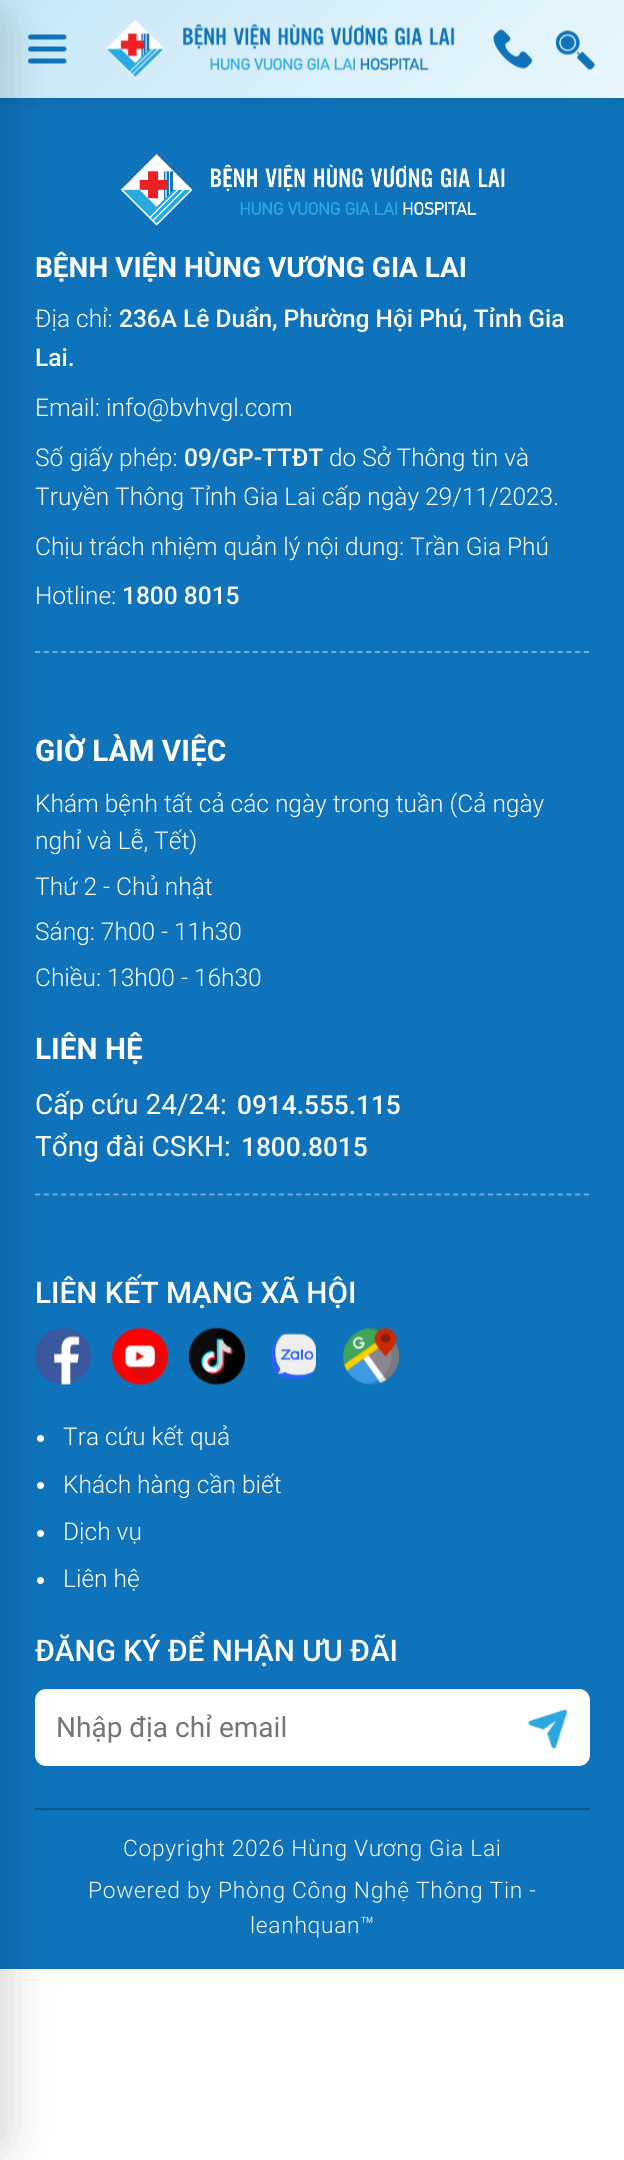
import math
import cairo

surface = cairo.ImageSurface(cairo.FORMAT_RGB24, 624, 2160)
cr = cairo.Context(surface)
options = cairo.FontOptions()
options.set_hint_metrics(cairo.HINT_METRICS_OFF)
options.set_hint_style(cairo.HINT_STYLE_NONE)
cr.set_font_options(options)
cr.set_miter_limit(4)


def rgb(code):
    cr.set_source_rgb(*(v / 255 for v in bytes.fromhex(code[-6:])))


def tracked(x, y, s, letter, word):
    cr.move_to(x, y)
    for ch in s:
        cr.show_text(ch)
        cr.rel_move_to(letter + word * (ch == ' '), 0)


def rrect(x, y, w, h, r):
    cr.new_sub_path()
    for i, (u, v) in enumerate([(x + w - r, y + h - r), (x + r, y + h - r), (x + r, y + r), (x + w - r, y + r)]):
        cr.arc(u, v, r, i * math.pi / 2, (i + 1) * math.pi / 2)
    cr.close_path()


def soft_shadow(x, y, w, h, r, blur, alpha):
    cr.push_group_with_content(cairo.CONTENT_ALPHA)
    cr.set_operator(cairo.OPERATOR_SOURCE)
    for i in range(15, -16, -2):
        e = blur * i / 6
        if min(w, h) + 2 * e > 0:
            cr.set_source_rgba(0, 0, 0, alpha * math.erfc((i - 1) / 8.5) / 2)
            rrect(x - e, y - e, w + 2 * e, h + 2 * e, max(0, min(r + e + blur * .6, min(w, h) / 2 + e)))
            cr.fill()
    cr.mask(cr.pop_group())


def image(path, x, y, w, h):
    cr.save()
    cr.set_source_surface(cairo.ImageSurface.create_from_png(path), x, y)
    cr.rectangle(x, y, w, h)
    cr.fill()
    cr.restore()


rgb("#ffffff")
cr.paint()
rgb("#0e73ba")
cr.rectangle(0, 98, 624, 1871)
cr.fill()
rgb("#000000")
soft_shadow(0, 4, 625, 98, 0, 7, 0.08)
gradient = cairo.LinearGradient(132, -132, 493, 230)
gradient.add_color_stop_rgba(0, 0.784, 0.91, 0.969, 1)
gradient.add_color_stop_rgba(1, 0.914, 0.965, 0.988, 1)
cr.set_source(gradient)
cr.rectangle(0, 0, 624, 98)
cr.fill()
image("img/1.png", 28, 34, 39, 30)
image("img/2.png", 105, 19, 350, 60)
image("img/3.png", 493, 29, 39, 40)
image("img/4.png", 555, 30, 40, 40)
cr.new_path()
cr.move_to(35, 652)
cr.line_to(590, 652)
rgb("#7ab2d9")
cr.set_line_width(1.8)
cr.set_dash([5.25, 3.46])
cr.stroke()
cr.new_path()
cr.move_to(35, 1194.5)
cr.line_to(590, 1194.5)
cr.stroke()
image("img/6.png", 35, 1327, 56, 58)
rgb("#ffffff")
cr.arc(40.5, 1438.5, 3.5, 0, 2 * math.pi)
cr.fill()
cr.arc(40.5, 1485.5, 3.5, 0, 2 * math.pi)
cr.fill()
cr.arc(40.5, 1533.5, 3.5, 0, 2 * math.pi)
cr.fill()
cr.arc(40.5, 1580.5, 3.5, 0, 2 * math.pi)
cr.fill()
cr.new_path()
cr.move_to(46, 1689)
cr.line_to(506, 1689)
cr.line_to(506, 1766)
cr.line_to(46, 1766)
cr.curve_to(40, 1766, 35, 1761, 35, 1755)
cr.line_to(35, 1700)
cr.curve_to(35, 1694, 40, 1689, 46, 1689)
cr.close_path()
cr.fill()
rgb("#0b568c")
cr.rectangle(35, 1808, 555, 2)
cr.fill()
rgb("#000000")
soft_shadow(-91, 0, 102, 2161, 28, 21, 0.15)
image("img/5.png", 120, 154, 385, 72)
image("img/7.png", 112, 1327, 56, 58)
image("img/8.png", 189, 1327, 56, 58)
image("img/9.png", 272, 1333, 44, 46)
image("img/10.png", 343, 1327, 56, 58)
rgb("#ffffff")
cr.new_path()
cr.move_to(506, 1689)
cr.line_to(579, 1689)
cr.curve_to(585, 1689, 590, 1694, 590, 1700)
cr.line_to(590, 1755)
cr.curve_to(590, 1761, 585, 1766, 579, 1766)
cr.line_to(506, 1766)
cr.close_path()
cr.fill()
image("img/11.png", 528, 1709, 40, 40)
cr.select_font_face("Roboto", cairo.FONT_SLANT_NORMAL, cairo.FONT_WEIGHT_BOLD)
cr.set_font_size(28)
cr.move_to(35, 277)
cr.show_text("BỆNH VIỆN HÙNG VƯƠNG GIA LAI")
cr.select_font_face("Roboto Light")
cr.set_font_size(24.5)
cr.move_to(35, 327)
cr.show_text("Địa chỉ:")
cr.select_font_face("Roboto Medium")
cr.move_to(119, 327)
cr.show_text("236A Lê Duẩn, Phường Hội Phú, Tỉnh Gia")
cr.move_to(35, 366)
cr.show_text("Lai.")
cr.select_font_face("Roboto Light")
cr.move_to(35, 416)
cr.show_text("Email: info@bvhvgl.com")
cr.move_to(35, 466)
cr.show_text("Số giấy phép:")
cr.select_font_face("Roboto Medium")
cr.move_to(184, 466)
cr.show_text("09/GP-TTĐT")
cr.select_font_face("Roboto Light")
for x, y, s in [
    (329, 466, "do Sở Thông tin và"),
    (35, 505, "Truyền Thông Tỉnh Gia Lai cấp ngày 29/11/2023."),
    (35, 555, "Chịu trách nhiệm quản lý nội dung: Trần Gia Phú"),
    (35, 604, "Hotline:"),
]:
    cr.move_to(x, y)
    cr.show_text(s)
cr.select_font_face("Roboto Medium")
cr.move_to(122, 604)
cr.show_text("1800 8015")
cr.select_font_face("Roboto", cairo.FONT_SLANT_NORMAL, cairo.FONT_WEIGHT_BOLD)
cr.set_font_size(29.75)
cr.move_to(35, 761)
cr.show_text("GIỜ LÀM VIỆC")
cr.select_font_face("Roboto Light")
cr.set_font_size(24.5)
for x, y, s in [
    (35, 812, "Khám bệnh tất cả các ngày trong tuần (Cả ngày"),
    (35, 849, "nghỉ và Lễ, Tết)"),
    (35, 895, "Thứ 2 - Chủ nhật"),
    (35, 940, "Sáng: 7h00 - 11h30"),
    (35, 986, "Chiều: 13h00 - 16h30"),
]:
    cr.move_to(x, y)
    cr.show_text(s)
cr.select_font_face("Roboto", cairo.FONT_SLANT_NORMAL, cairo.FONT_WEIGHT_BOLD)
cr.set_font_size(29.75)
cr.move_to(35, 1059)
cr.show_text("LIÊN HỆ")
cr.select_font_face("Roboto")
cr.set_font_size(28)
cr.move_to(35, 1114)
cr.show_text("Cấp cứu 24/24:")
cr.select_font_face("Roboto Medium")
cr.set_font_size(26.25)
cr.move_to(237, 1114)
cr.show_text("0914.555.115")
cr.select_font_face("Roboto")
cr.set_font_size(28)
cr.move_to(35, 1156)
cr.show_text("Tổng đài CSKH:")
cr.select_font_face("Roboto Medium")
cr.set_font_size(26.25)
cr.move_to(241, 1156)
cr.show_text("1800.8015")
cr.set_font_size(29.75)
cr.move_to(35, 1303)
cr.show_text("LIÊN KẾT MẠNG XÃ HỘI")
cr.select_font_face("Roboto Light")
cr.set_font_size(24.5)
for x, y, s in [
    (63, 1445, "Tra cứu kết quả"),
    (63, 1493, "Khách hàng cần biết"),
    (63, 1540, "Dịch vụ"),
    (63, 1587, "Liên hệ"),
]:
    cr.move_to(x, y)
    cr.show_text(s)
cr.select_font_face("Roboto Medium")
cr.set_font_size(29.75)
cr.move_to(35, 1661)
cr.show_text("ĐĂNG KÝ ĐỂ NHẬN ƯU ĐÃI")
cr.select_font_face("Roboto")
cr.set_font_size(28)
rgb("#757575")
cr.move_to(56, 1737)
cr.show_text("Nhập địa chỉ email")
cr.select_font_face("Roboto Light")
cr.set_font_size(22.75)
rgb("#f3f8fc")
for x, y, s in [
    (123, 1856, "Copyright 2026 Hùng Vương Gia Lai"),
    (88, 1898, "Powered by Phòng Công Nghệ Thông Tin -"),
    (250, 1933, "leanhquan™"),
]:
    tracked(x, y, s, 0.7, 0)
surface.write_to_png("page.png")
